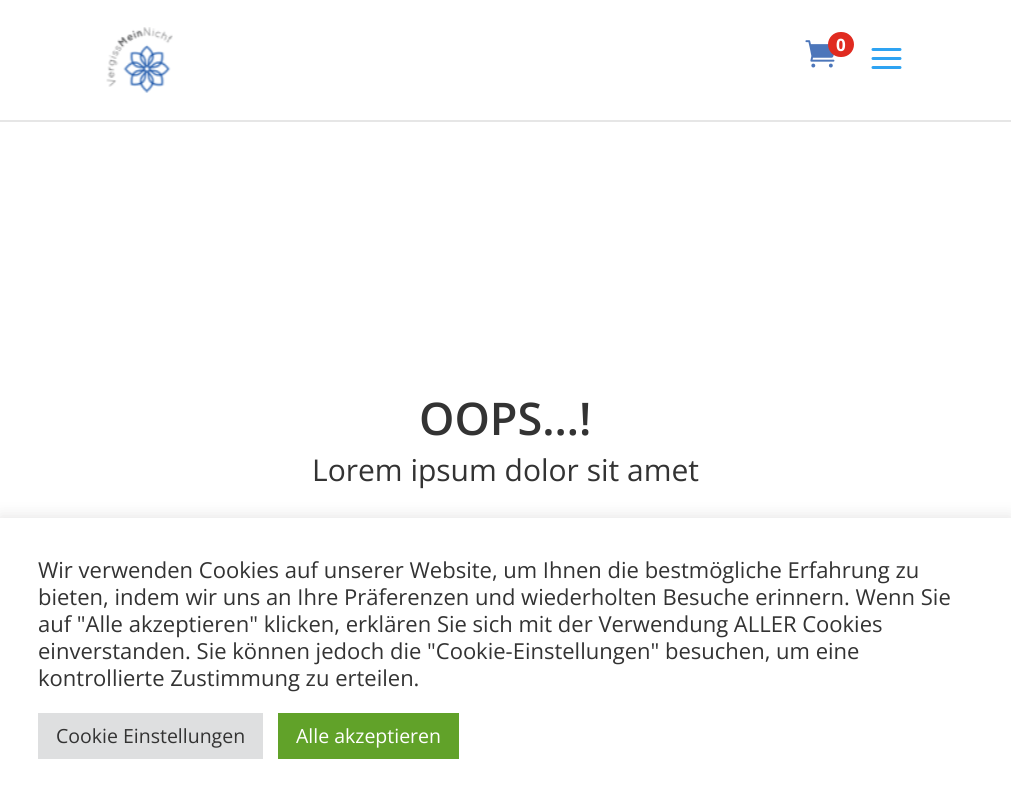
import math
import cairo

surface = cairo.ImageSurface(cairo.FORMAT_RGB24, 1011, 804)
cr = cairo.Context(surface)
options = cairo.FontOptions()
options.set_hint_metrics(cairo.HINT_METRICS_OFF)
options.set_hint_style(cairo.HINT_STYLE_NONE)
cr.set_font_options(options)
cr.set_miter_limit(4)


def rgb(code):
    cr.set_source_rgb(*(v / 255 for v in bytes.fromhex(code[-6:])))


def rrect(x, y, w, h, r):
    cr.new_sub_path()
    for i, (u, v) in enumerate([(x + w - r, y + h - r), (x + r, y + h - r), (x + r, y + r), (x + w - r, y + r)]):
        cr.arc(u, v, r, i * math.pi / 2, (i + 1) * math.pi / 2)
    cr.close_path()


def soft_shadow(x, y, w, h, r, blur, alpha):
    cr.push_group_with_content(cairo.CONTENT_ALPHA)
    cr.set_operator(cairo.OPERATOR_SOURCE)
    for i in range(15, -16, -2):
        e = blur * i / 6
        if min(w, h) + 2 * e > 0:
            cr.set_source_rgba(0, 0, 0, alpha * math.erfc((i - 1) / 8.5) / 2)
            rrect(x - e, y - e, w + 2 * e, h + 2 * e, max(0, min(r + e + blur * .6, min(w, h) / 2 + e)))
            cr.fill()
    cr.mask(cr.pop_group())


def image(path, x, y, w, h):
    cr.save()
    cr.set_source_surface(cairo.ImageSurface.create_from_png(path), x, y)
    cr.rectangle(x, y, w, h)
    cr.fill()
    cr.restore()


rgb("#ffffff")
cr.paint()
rgb("#e6e6e6")
cr.rectangle(0, 120, 1011, 2)
cr.fill()
image("img/1.png", 106, 27, 67, 66)
image("img/2.png", 805, 40, 30, 28)
rgb("#e02b20")
rrect(828, 32, 26, 25, 12.5)
cr.fill()
image("img/3.png", 871, 48, 31, 21)
rgb("#acabab")
soft_shadow(0, 516, 1011, 287, 0, 7.5, 0.3)
for x, y, w, h, color in [
    (0, 518, 1011, 286, "#ffffff"),
    (38, 713, 225, 46, "#dedfe0"),
    (278, 713, 181, 46, "#61a229"),
]:
    rgb(color)
    cr.rectangle(x, y, w, h)
    cr.fill()
cr.select_font_face("Open Sans", cairo.FONT_SLANT_NORMAL, cairo.FONT_WEIGHT_BOLD)
cr.set_font_size(17)
rgb("#ffffff")
cr.move_to(836, 51)
cr.show_text("0")
cr.select_font_face("Open Sans SemiBold")
cr.set_font_size(45)
rgb("#333333")
cr.move_to(419, 435)
cr.show_text("OOPS…!")
cr.select_font_face("Open Sans")
cr.set_font_size(30)
cr.move_to(312, 481)
cr.show_text("Lorem ipsum dolor sit amet")
cr.set_font_size(22)
for x, y, s in [
    (38, 578, "Wir verwenden Cookies auf unserer Website, um Ihnen die bestmögliche Erfahrung zu"),
    (38, 605, "bieten, indem wir uns an Ihre Präferenzen und wiederholten Besuche erinnern. Wenn Sie"),
    (38, 632, "auf \"Alle akzeptieren\" klicken, erklären Sie sich mit der Verwendung ALLER Cookies"),
    (38, 659, "einverstanden. Sie können jedoch die \"Cookie-Einstellungen\" besuchen, um eine"),
    (38, 686, "kontrollierte Zustimmung zu erteilen."),
]:
    cr.move_to(x, y)
    cr.show_text(s)
cr.set_font_size(19.5)
cr.move_to(56, 743)
cr.show_text("Cookie Einstellungen")
rgb("#ffffff")
cr.move_to(296, 743)
cr.show_text("Alle akzeptieren")
surface.write_to_png("page.png")
